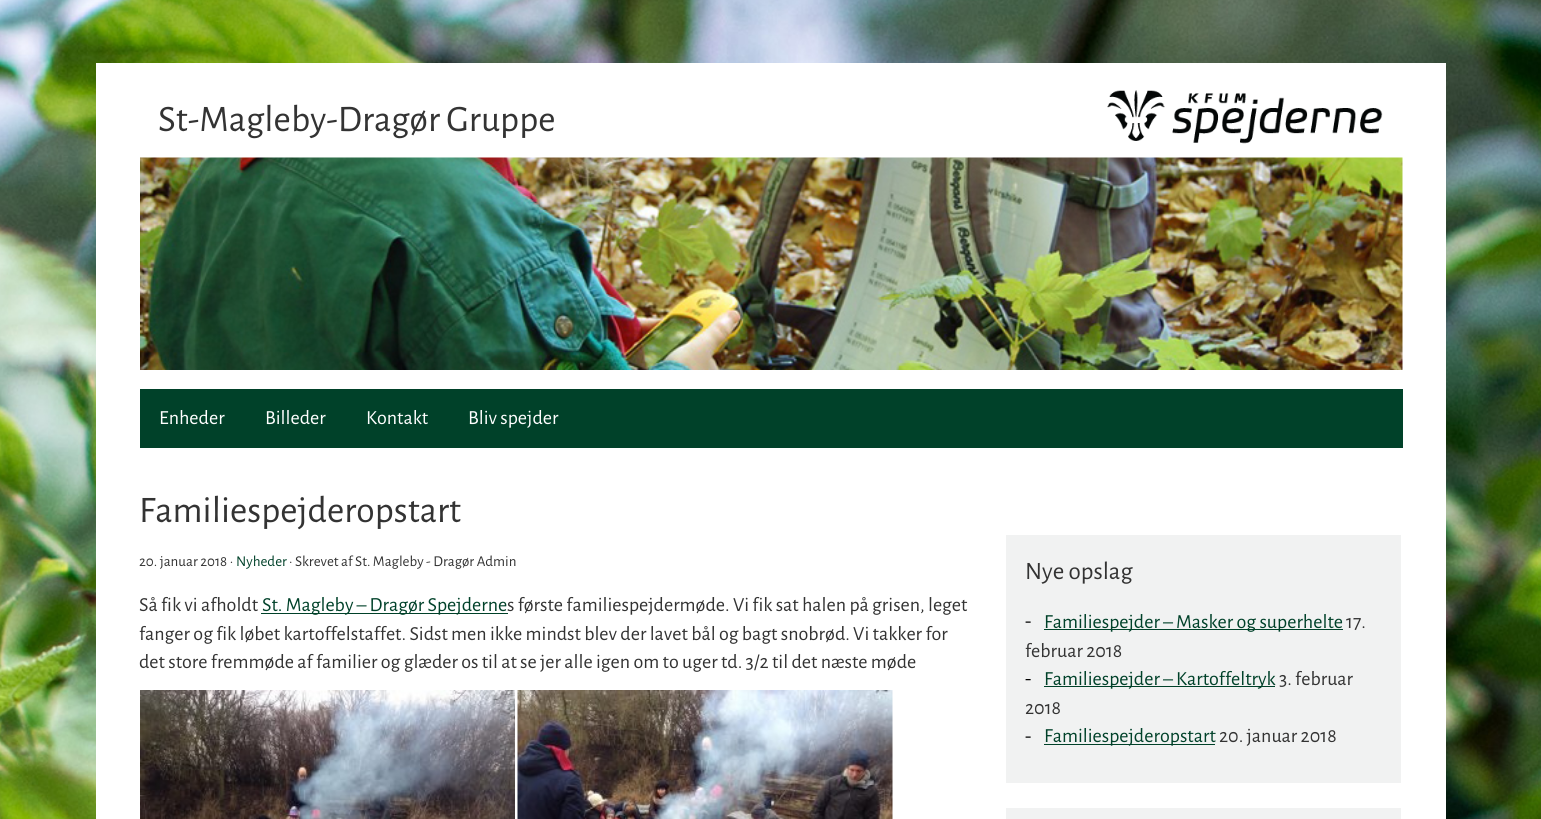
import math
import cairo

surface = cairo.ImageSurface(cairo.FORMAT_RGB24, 1541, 819)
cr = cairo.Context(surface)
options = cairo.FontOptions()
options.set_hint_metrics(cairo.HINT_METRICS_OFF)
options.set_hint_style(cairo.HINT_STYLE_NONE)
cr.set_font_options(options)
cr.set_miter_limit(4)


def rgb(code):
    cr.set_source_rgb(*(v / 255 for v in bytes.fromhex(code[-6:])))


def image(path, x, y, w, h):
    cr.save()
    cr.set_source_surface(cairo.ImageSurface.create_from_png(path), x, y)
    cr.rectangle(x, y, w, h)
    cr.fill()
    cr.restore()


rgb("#ffffff")
cr.paint()
image("img/1.png", 0, 0, 1541, 819)
rgb("#ffffff")
cr.rectangle(96, 63, 1350, 756)
cr.fill()
image("img/2.png", 1107, 90, 276, 54)
image("img/3.png", 140, 157, 1263, 213)
rgb("#004129")
cr.rectangle(140, 389, 1263, 59)
cr.fill()
cr.rectangle(261, 613, 247, 1)
cr.fill()
image("img/4.png", 140, 690, 375, 129)
image("img/5.png", 517, 690, 376, 129)
rgb("#f1f2f2")
cr.rectangle(1006, 535, 395, 248)
cr.fill()
image("img/6.png", 1025, 621, 6, 2)
rgb("#004129")
cr.rectangle(1044, 629, 299, 1)
cr.fill()
image("img/7.png", 1025, 679, 6, 2)
cr.rectangle(1044, 686, 231, 1)
cr.fill()
image("img/6.png", 1025, 736, 6, 2)
cr.rectangle(1044, 744, 171, 1)
cr.fill()
rgb("#f1f2f2")
cr.rectangle(1006, 808, 395, 11)
cr.fill()
cr.select_font_face("Alegreya Sans")
cr.set_font_size(37.5)
rgb("#333333")
cr.move_to(158, 131)
cr.show_text("St-Magleby-Dragør Gruppe")
cr.set_font_size(20)
rgb("#ffffff")
for x, y, s in [
    (159, 424, "Enheder"),
    (265, 424, "Billeder"),
    (366, 424, "Kontakt"),
    (468, 424, "Bliv spejder"),
]:
    cr.move_to(x, y)
    cr.show_text(s)
cr.set_font_size(37.5)
rgb("#333333")
cr.move_to(139, 522)
cr.show_text("Familiespejderopstart")
cr.set_font_size(15)
cr.move_to(139, 566)
cr.show_text("20. januar 2018 ·")
rgb("#004129")
cr.move_to(236, 566)
cr.show_text("Nyheder")
rgb("#333333")
cr.move_to(289, 566)
cr.show_text("· Skrevet af St. Magleby - Dragør Admin")
cr.set_font_size(20)
cr.move_to(139, 611)
cr.show_text("Så fik vi afholdt")
rgb("#004129")
cr.move_to(262, 611)
cr.show_text("St. Magleby – Dragør Spejderne")
rgb("#333333")
for x, y, s in [
    (507, 611, "s første familiespejdermøde. Vi fik sat halen på grisen, leget"),
    (139, 640, "fanger og fik løbet kartoffelstaffet. Sidst men ikke mindst blev der lavet bål og bagt snobrød. Vi takker for"),
    (139, 668, "det store fremmøde af familier og glæder os til at se jer alle igen om to uger td. 3/2 til det næste møde"),
]:
    cr.move_to(x, y)
    cr.show_text(s)
cr.set_font_size(25)
cr.move_to(1025, 579)
cr.show_text("Nye opslag")
cr.set_font_size(20)
rgb("#004129")
cr.move_to(1044, 628)
cr.show_text("Familiespejder – Masker og superhelte")
rgb("#333333")
cr.move_to(1346, 628)
cr.show_text("17.")
cr.move_to(1025, 657)
cr.show_text("februar 2018")
rgb("#004129")
cr.move_to(1044, 685)
cr.show_text("Familiespejder – Kartoffeltryk")
rgb("#333333")
cr.move_to(1279, 685)
cr.show_text("3. februar")
cr.move_to(1025, 714)
cr.show_text("2018")
rgb("#004129")
cr.move_to(1044, 742)
cr.show_text("Familiespejderopstart")
rgb("#333333")
cr.move_to(1219, 742)
cr.show_text("20. januar 2018")
surface.write_to_png("page.png")
